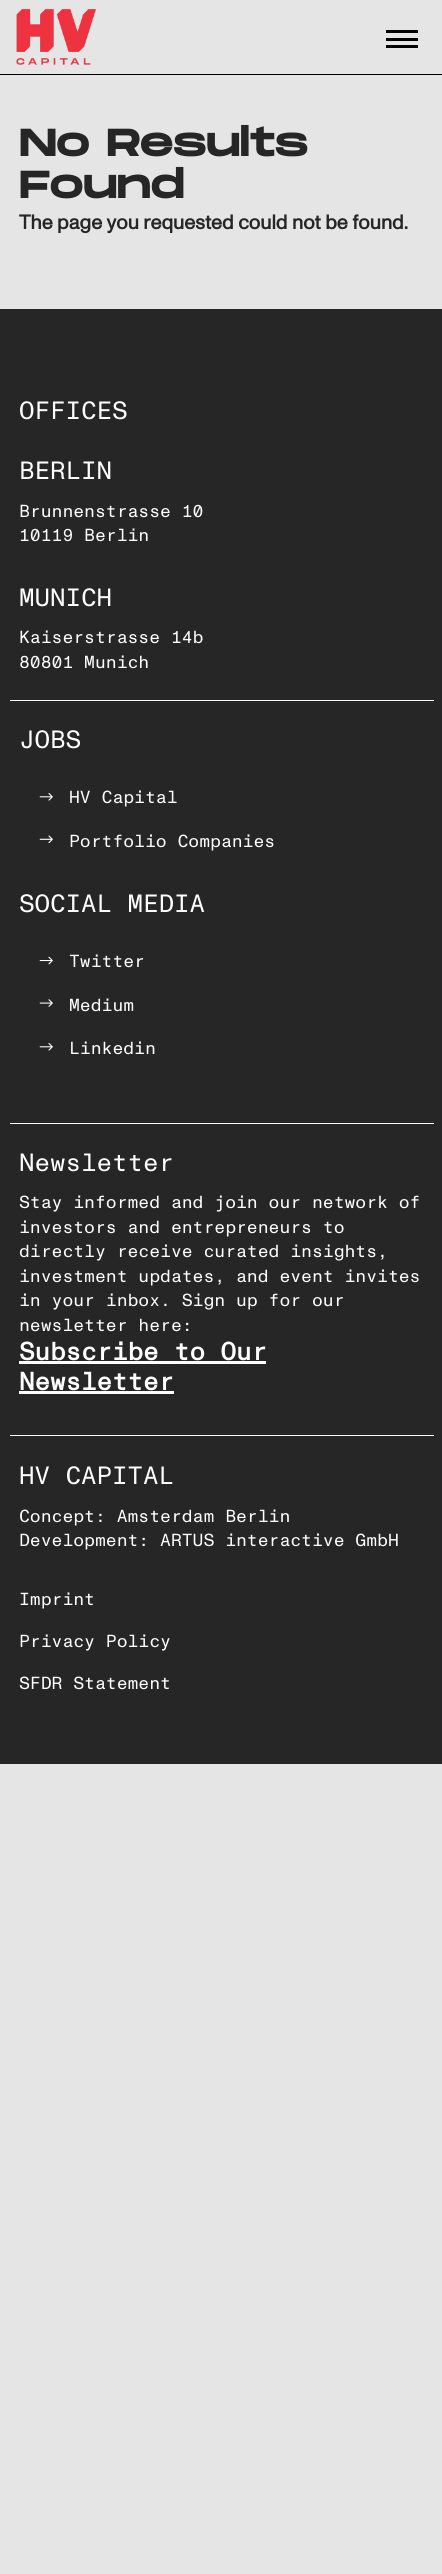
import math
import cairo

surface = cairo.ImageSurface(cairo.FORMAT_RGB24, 442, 2574)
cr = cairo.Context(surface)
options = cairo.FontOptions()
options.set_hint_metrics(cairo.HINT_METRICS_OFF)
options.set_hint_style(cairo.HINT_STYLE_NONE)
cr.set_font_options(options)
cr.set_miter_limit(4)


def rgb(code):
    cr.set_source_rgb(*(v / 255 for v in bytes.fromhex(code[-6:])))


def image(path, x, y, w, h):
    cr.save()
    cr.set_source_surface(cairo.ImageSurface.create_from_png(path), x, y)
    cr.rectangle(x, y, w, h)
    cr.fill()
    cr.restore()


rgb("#e5e5e5")
cr.paint()
rgb("#000000")
cr.rectangle(0, 74, 442, 1)
cr.fill()
image("img/1.png", 16, 8, 81, 57)
for x, y, w, h, color in [
    (386, 30, 32, 3, "#000000"),
    (386, 38, 32, 3, "#000000"),
    (386, 45, 32, 3, "#000000"),
    (0, 309, 442, 1455, "#262626"),
    (10, 700, 424, 1, "#ffffff"),
    (10, 1123, 424, 1, "#ffffff"),
]:
    rgb(color)
    cr.rectangle(x, y, w, h)
    cr.fill()
image("img/2.png", 39, 793, 14, 8)
image("img/3.png", 39, 835, 14, 9)
image("img/4.png", 39, 956, 14, 9)
image("img/5.png", 39, 999, 14, 8)
image("img/2.png", 39, 1043, 14, 8)
for x, y, w, h, color in [
    (10, 1435, 424, 1, "#ffffff"),
    (19, 1361, 247, 3, "#ffffff"),
    (19, 1391, 155, 3, "#ffffff"),
]:
    rgb(color)
    cr.rectangle(x, y, w, h)
    cr.fill()
cr.select_font_face("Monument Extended", cairo.FONT_SLANT_NORMAL, cairo.FONT_WEIGHT_BOLD)
cr.set_font_size(37.5)
rgb("#262626")
cr.move_to(19, 156)
cr.show_text("No Results")
cr.move_to(19, 198)
cr.show_text("Found")
cr.select_font_face("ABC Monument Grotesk", cairo.FONT_SLANT_NORMAL, cairo.FONT_WEIGHT_BOLD)
cr.set_font_size(20)
cr.move_to(19, 229)
cr.show_text("The page you requested could not be found.")
cr.select_font_face("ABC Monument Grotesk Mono")
cr.set_font_size(25)
rgb("#ffffff")
cr.move_to(19, 419)
cr.show_text("OFFICES")
cr.move_to(19, 479)
cr.show_text("BERLIN")
cr.set_font_size(17.5)
cr.move_to(19, 517)
cr.show_text("Brunnenstrasse 10")
cr.move_to(19, 541)
cr.show_text("10119 Berlin")
cr.set_font_size(25)
cr.move_to(19, 606)
cr.show_text("MUNICH")
cr.set_font_size(17.5)
cr.move_to(19, 643)
cr.show_text("Kaiserstrasse 14b")
cr.move_to(19, 668)
cr.show_text("80801 Munich")
cr.set_font_size(25)
cr.move_to(19, 748)
cr.show_text("JOBS")
cr.set_font_size(17.5)
cr.move_to(69, 803)
cr.show_text("HV Capital")
cr.move_to(69, 847)
cr.show_text("Portfolio Companies")
cr.set_font_size(25)
cr.move_to(19, 912)
cr.show_text("SOCIAL MEDIA")
cr.set_font_size(17.5)
for x, y, s in [
    (69, 967, "Twitter"),
    (69, 1011, "Medium"),
    (69, 1054, "Linkedin"),
]:
    cr.move_to(x, y)
    cr.show_text(s)
cr.set_font_size(25)
cr.move_to(19, 1171)
cr.show_text("Newsletter")
cr.set_font_size(17.5)
for x, y, s in [
    (19, 1208, "Stay informed and join our network of"),
    (19, 1233, "investors and entrepreneurs to"),
    (19, 1257, "directly receive curated insights,"),
    (19, 1282, "investment updates, and event invites"),
    (19, 1306, "in your inbox. Sign up for our"),
    (19, 1331, "newsletter here:"),
]:
    cr.move_to(x, y)
    cr.show_text(s)
cr.select_font_face("ABC Monument Grotesk Mono", cairo.FONT_SLANT_NORMAL, cairo.FONT_WEIGHT_BOLD)
cr.set_font_size(25)
cr.move_to(19, 1360)
cr.show_text("Subscribe to Our")
cr.move_to(19, 1390)
cr.show_text("Newsletter")
cr.select_font_face("ABC Monument Grotesk Mono")
cr.move_to(19, 1484)
cr.show_text("HV CAPITAL")
cr.set_font_size(17.5)
for x, y, s in [
    (19, 1522, "Concept: Amsterdam Berlin"),
    (19, 1546, "Development: ARTUS interactive GmbH"),
    (19, 1605, "Imprint"),
    (19, 1647, "Privacy Policy"),
    (19, 1689, "SFDR Statement"),
]:
    cr.move_to(x, y)
    cr.show_text(s)
surface.write_to_png("page.png")
